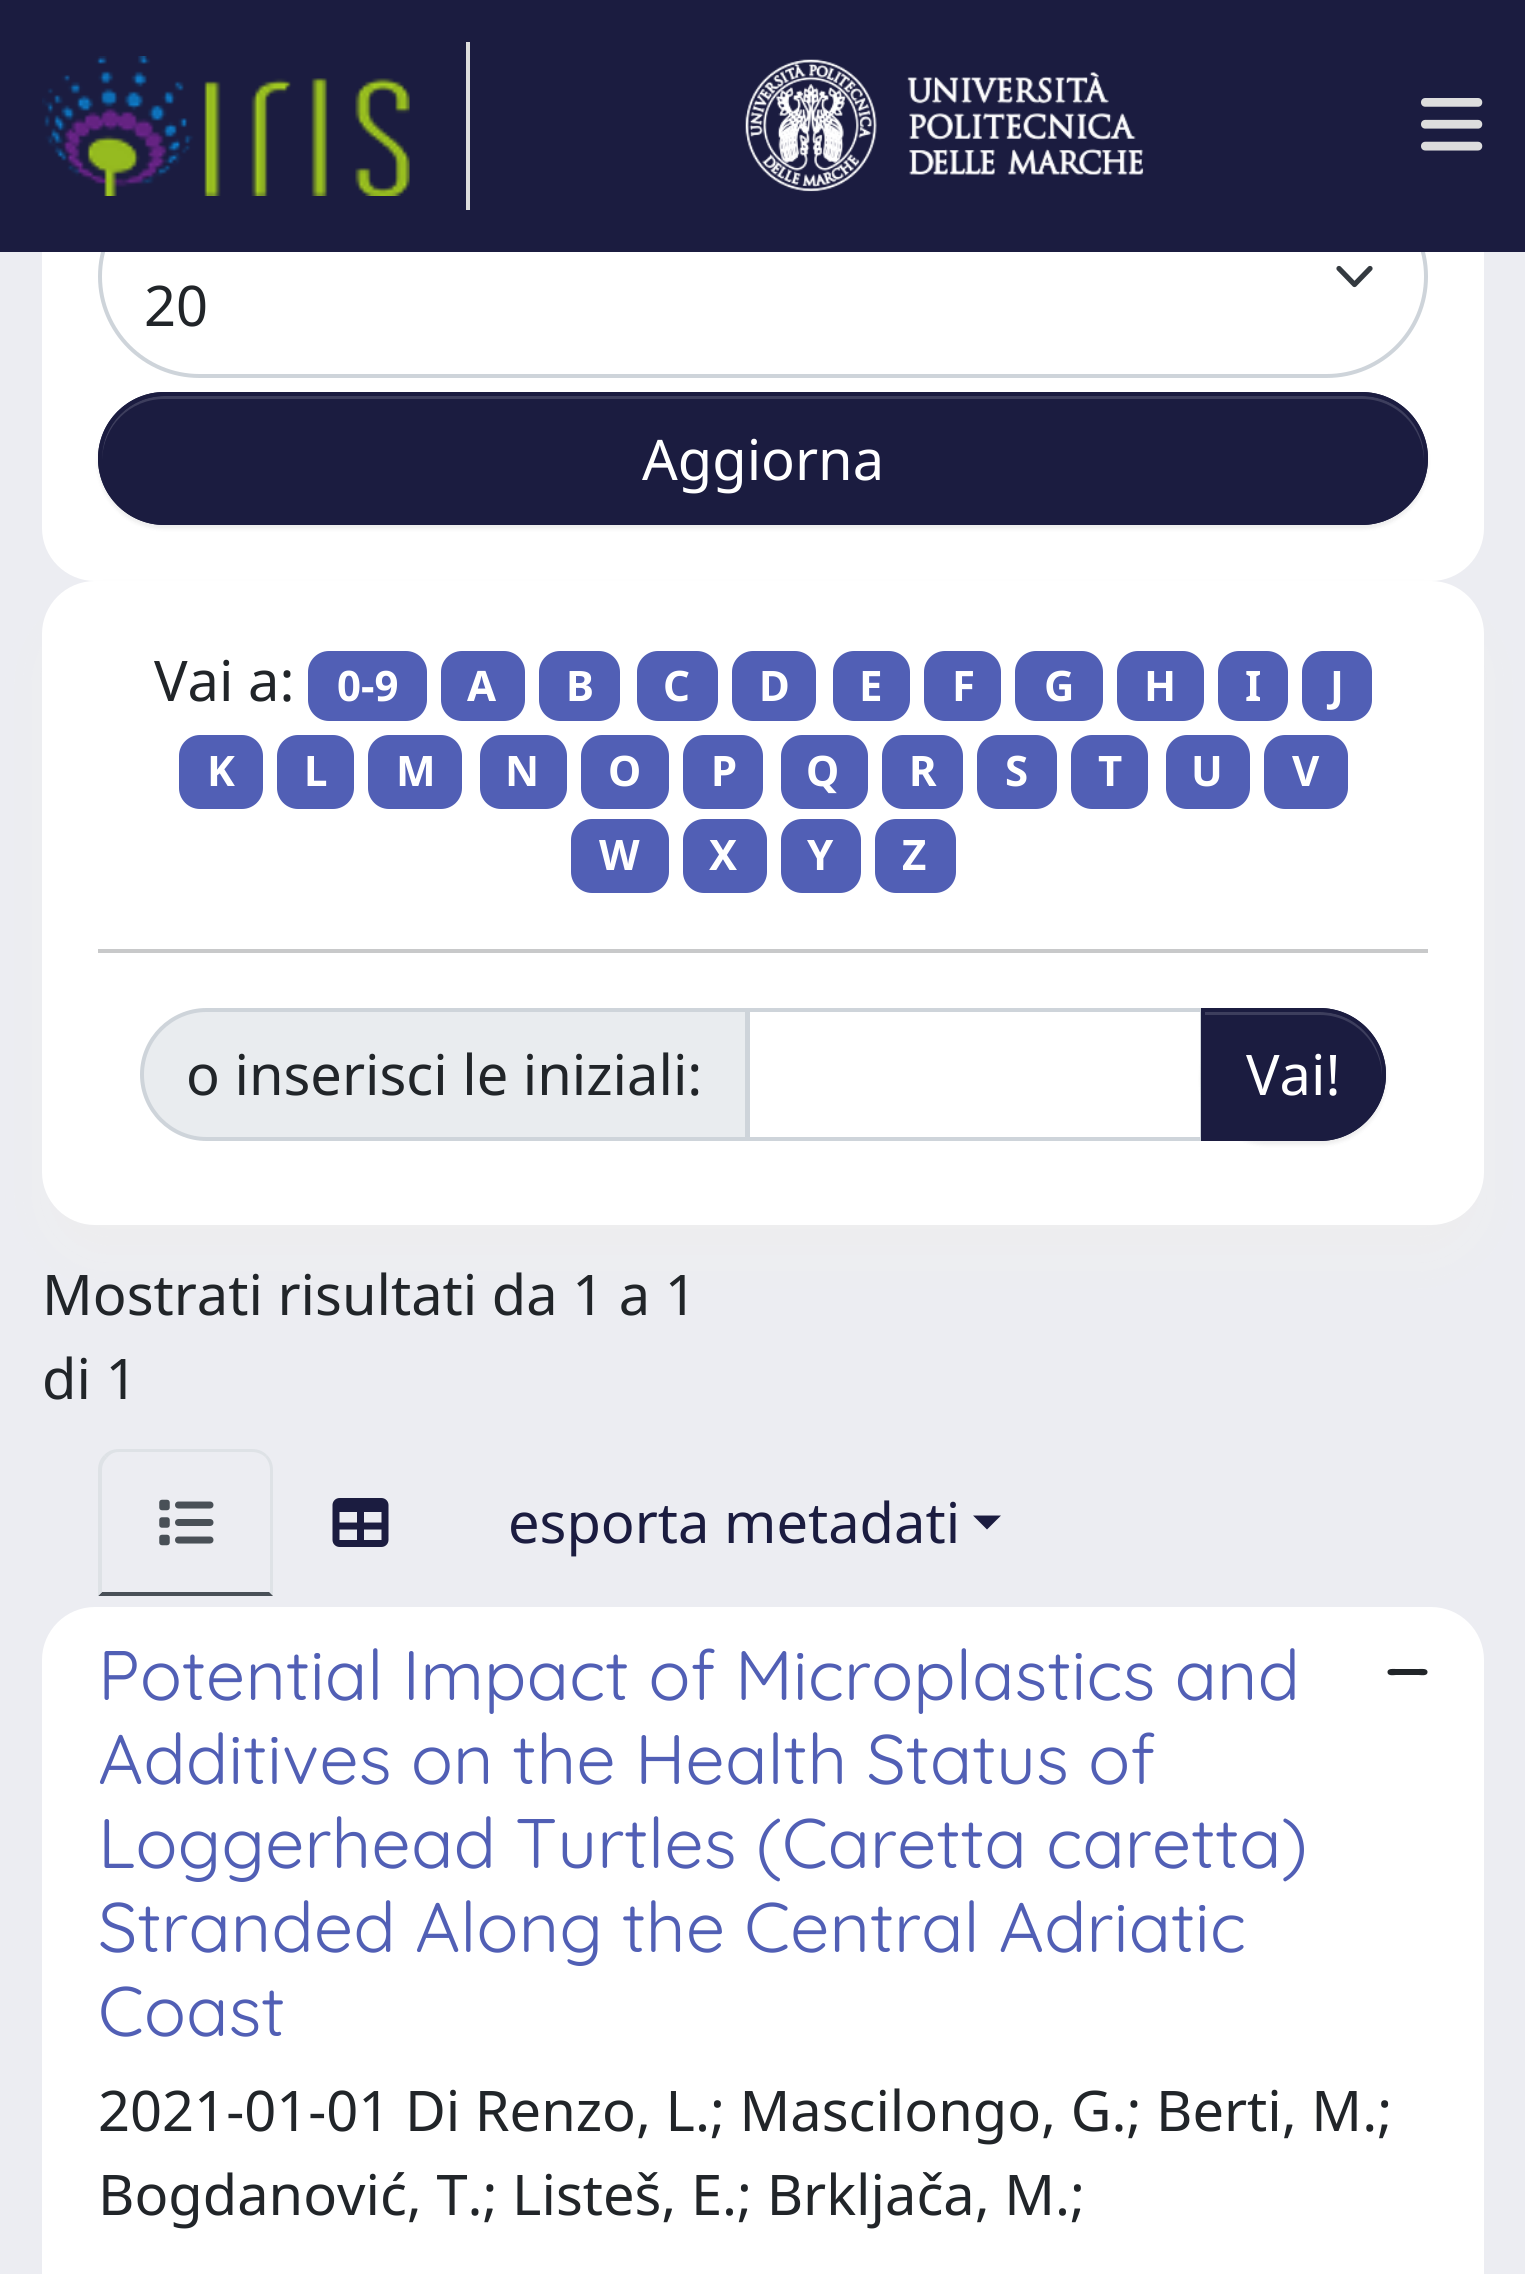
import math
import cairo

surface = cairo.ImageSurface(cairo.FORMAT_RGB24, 1525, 2274)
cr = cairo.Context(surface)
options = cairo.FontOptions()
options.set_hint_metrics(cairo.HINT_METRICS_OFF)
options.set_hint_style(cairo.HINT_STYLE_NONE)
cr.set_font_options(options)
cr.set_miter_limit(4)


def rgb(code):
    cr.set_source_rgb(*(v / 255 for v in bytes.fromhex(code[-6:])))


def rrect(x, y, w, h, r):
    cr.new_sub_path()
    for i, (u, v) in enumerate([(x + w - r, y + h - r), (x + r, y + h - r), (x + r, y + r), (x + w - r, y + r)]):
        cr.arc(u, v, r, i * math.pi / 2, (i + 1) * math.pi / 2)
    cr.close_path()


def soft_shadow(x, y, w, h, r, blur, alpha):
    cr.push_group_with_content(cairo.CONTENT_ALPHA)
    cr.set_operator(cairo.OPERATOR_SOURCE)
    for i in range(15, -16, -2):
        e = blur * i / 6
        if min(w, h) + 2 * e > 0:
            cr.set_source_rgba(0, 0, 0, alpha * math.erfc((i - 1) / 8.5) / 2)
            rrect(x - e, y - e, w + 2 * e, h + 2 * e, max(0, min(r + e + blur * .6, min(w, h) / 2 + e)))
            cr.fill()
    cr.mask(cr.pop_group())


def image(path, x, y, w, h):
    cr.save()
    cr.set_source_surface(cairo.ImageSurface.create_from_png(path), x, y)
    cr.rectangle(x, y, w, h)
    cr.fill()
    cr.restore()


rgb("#ecedf2")
cr.paint()
rgb("#ffffff")
rrect(42, -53, 1442, 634, 53)
cr.fill()
cr.new_path()
cr.move_to(1339, 268.5)
cr.line_to(1354.5, 284.5)
cr.line_to(1370, 268.5)
rgb("#343a40")
cr.set_line_width(5.2)
cr.set_line_cap(cairo.LINE_CAP_ROUND)
cr.set_line_join(cairo.LINE_JOIN_ROUND)
cr.stroke()
rrect(100, 177, 1326, 199, 99.5)
rgb("#ced4da")
cr.set_line_width(4)
cr.set_line_cap(cairo.LINE_CAP_BUTT)
cr.set_line_join(cairo.LINE_JOIN_MITER)
cr.stroke()
rgb("#1b1c40")
cr.rectangle(0, 0, 1525, 252)
cr.fill()
rgb("#dddddd")
cr.rectangle(466, 42, 4, 168)
cr.fill()
image("img/1.png", 42, 56, 368, 140)
image("img/2.png", 745, 59, 399, 133)
image("img/3.png", 1421, 98, 62, 53)
rgb("#000000")
soft_shadow(98, 396, 1330, 133, 66.5, 2, 0.07)
rgb("#1b1c40")
rrect(98, 392, 1330, 133, 66.5)
cr.fill()
rgb("#3d3e5d")
cr.new_path()
cr.move_to(164, 399)
cr.line_to(1362, 399)
cr.curve_to(1396, 399, 1424, 427, 1424, 462)
cr.curve_to(1424, 468, 1423, 474, 1422, 480)
cr.curve_to(1424, 473, 1425, 466, 1425, 459)
cr.curve_to(1425, 424, 1397, 396, 1362, 396)
cr.line_to(165, 396)
cr.curve_to(130, 396, 102, 424, 102, 459)
cr.line_to(102, 460)
cr.curve_to(103, 426, 130, 399, 164, 399)
cr.close_path()
cr.fill()
rrect(100, 394, 1326, 129, 64.5)
rgb("#1b1c40")
cr.stroke()
rgb("#eeeeee")
soft_shadow(53, 627, 1421, 623, 42, 26, 1)
rgb("#ffffff")
rrect(42, 581, 1442, 644, 53)
cr.fill()
rgb("#515fb5")
rrect(308, 651, 119, 70, 21)
cr.fill()
rrect(441, 651, 84, 70, 21)
cr.fill()
rrect(539, 651, 81, 70, 21)
cr.fill()
rrect(637, 651, 81, 70, 21)
cr.fill()
rrect(732, 651, 84, 70, 21)
cr.fill()
rrect(833, 651, 77, 70, 21)
cr.fill()
rrect(924, 651, 77, 70, 21)
cr.fill()
rrect(1015, 651, 88, 70, 21)
cr.fill()
rrect(1117, 651, 87, 70, 21)
cr.fill()
rrect(1218, 651, 70, 70, 21)
cr.fill()
rrect(1302, 651, 70, 70, 21)
cr.fill()
rrect(179, 735, 84, 74, 21)
cr.fill()
rrect(277, 735, 77, 74, 21)
cr.fill()
rrect(368, 735, 94, 74, 21)
cr.fill()
rrect(480, 735, 87, 74, 21)
cr.fill()
rrect(581, 735, 88, 74, 21)
cr.fill()
rrect(683, 735, 80, 74, 21)
cr.fill()
rrect(781, 735, 87, 74, 21)
cr.fill()
rrect(882, 735, 81, 74, 21)
cr.fill()
rrect(977, 735, 80, 74, 21)
cr.fill()
rrect(1071, 735, 77, 74, 21)
cr.fill()
rrect(1166, 735, 84, 74, 21)
cr.fill()
rrect(1264, 735, 84, 74, 21)
cr.fill()
rrect(571, 819, 98, 74, 21)
cr.fill()
rrect(683, 819, 84, 74, 21)
cr.fill()
rrect(781, 819, 80, 74, 21)
cr.fill()
rrect(875, 819, 81, 74, 21)
cr.fill()
rgb("#c8c9ca")
cr.rectangle(98, 949, 1330, 4)
cr.fill()
rgb("#e9ecef")
cr.new_path()
cr.move_to(206.5, 1010)
cr.line_to(747, 1010)
cr.line_to(747, 1139)
cr.line_to(206.5, 1139)
cr.curve_to(171, 1139, 142, 1110, 142, 1074.5)
cr.curve_to(142, 1039, 171, 1010, 206.5, 1010)
cr.close_path()
cr.fill_preserve()
rgb("#ced4da")
cr.stroke()
cr.rectangle(748, 1010, 454, 129)
cr.stroke()
rgb("#000000")
soft_shadow(1201, 1012, 185, 133, 66.5, 2, 0.07)
rgb("#1b1c40")
cr.new_path()
cr.move_to(1201, 1008)
cr.line_to(1319.5, 1008)
cr.curve_to(1356, 1008, 1386, 1038, 1386, 1074.5)
cr.curve_to(1386, 1111, 1356, 1141, 1319.5, 1141)
cr.line_to(1201, 1141)
cr.close_path()
cr.fill()
rgb("#3d3e5d")
cr.new_path()
cr.move_to(1204, 1015)
cr.line_to(1320, 1015)
cr.curve_to(1354, 1015, 1382, 1043, 1382, 1078)
cr.curve_to(1382, 1084, 1381, 1090, 1380, 1096)
cr.curve_to(1382, 1089, 1383, 1082, 1383, 1075)
cr.curve_to(1383, 1040, 1355, 1012, 1320, 1012)
cr.line_to(1204, 1012)
cr.close_path()
cr.fill()
cr.new_path()
cr.move_to(1203, 1010)
cr.line_to(1319.5, 1010)
cr.curve_to(1355, 1010, 1384, 1039, 1384, 1074.5)
cr.curve_to(1384, 1110, 1355, 1139, 1319.5, 1139)
cr.line_to(1203, 1139)
cr.close_path()
rgb("#1b1c40")
cr.stroke()
rgb("#dee2e6")
cr.new_path()
cr.move_to(119, 1449)
cr.curve_to(113, 1449, 108, 1451, 104, 1455)
cr.line_to(107, 1458)
cr.curve_to(110, 1454, 114, 1452, 119, 1452)
cr.line_to(252, 1452)
cr.curve_to(257, 1452, 262, 1454, 265, 1457)
cr.line_to(267, 1455)
cr.curve_to(263, 1451, 258, 1449, 252, 1449)
cr.close_path()
cr.fill()
cr.new_path()
cr.move_to(273, 1596)
cr.line_to(273, 1470)
cr.curve_to(273, 1464, 271, 1459, 267, 1455)
cr.line_to(265, 1457)
cr.curve_to(268, 1460, 270, 1465, 270, 1470)
cr.line_to(270, 1592)
cr.line_to(269, 1592)
cr.close_path()
cr.fill()
rgb("#495057")
cr.new_path()
cr.move_to(273, 1596)
cr.line_to(269, 1592)
cr.line_to(102, 1592)
cr.line_to(98, 1596)
cr.close_path()
cr.fill()
rgb("#dee2e6")
cr.new_path()
cr.move_to(98, 1596)
cr.line_to(102, 1592)
cr.line_to(102, 1470)
cr.curve_to(102, 1465, 104, 1461, 107, 1458)
cr.line_to(104, 1455)
cr.curve_to(100, 1459, 98, 1464, 98, 1470)
cr.close_path()
cr.fill()
image("img/4.png", 159, 1499, 55, 47)
image("img/5.png", 332, 1498, 57, 49)
rgb("#1b1c40")
cr.new_path()
cr.move_to(973, 1515.5)
cr.line_to(1001, 1515.5)
cr.line_to(987, 1529.5)
cr.close_path()
cr.fill()
rgb("#ffffff")
rrect(42, 1607, 1442, 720, 53)
cr.fill()
rgb("#212529")
cr.new_path()
cr.move_to(1427.5, 1672)
cr.curve_to(1427.5, 1676.5, 1421, 1675, 1418.5, 1675)
cr.line_to(1396, 1675)
cr.curve_to(1394, 1675, 1387.5, 1676.5, 1387.5, 1672)
cr.curve_to(1387.5, 1668, 1394, 1669, 1396, 1669)
cr.line_to(1418.5, 1669)
cr.curve_to(1421, 1669, 1427.5, 1668, 1427.5, 1672)
cr.close_path()
cr.fill()
cr.select_font_face("Noto Sans")
cr.set_font_size(56)
cr.move_to(144, 326)
cr.show_text("20")
rgb("#ffffff")
cr.move_to(642, 480)
cr.show_text("Aggiorna")
rgb("#212529")
cr.move_to(154, 701)
cr.show_text("Vai a:")
cr.select_font_face("Noto Sans", cairo.FONT_SLANT_NORMAL, cairo.FONT_WEIGHT_BOLD)
cr.set_font_size(42)
rgb("#ffffff")
for x, y, s in [
    (337, 701, "0-9"),
    (467, 701, "A"),
    (566, 701, "B"),
    (663, 701, "C"),
    (759, 701, "D"),
    (859, 701, "E"),
    (952, 701, "F"),
    (1044, 701, "G"),
    (1144, 701, "H"),
    (1245, 701, "I"),
    (1330, 701, "J"),
    (207, 786, "K"),
    (304, 786, "L"),
    (396, 786, "M"),
    (505, 786, "N"),
    (608, 786, "O"),
    (711, 786, "P"),
    (806, 786, "Q"),
    (909, 786, "R"),
    (1005, 786, "S"),
    (1098, 786, "T"),
    (1191, 786, "U"),
    (1292, 786, "V"),
    (599, 870, "W"),
    (709, 870, "X"),
    (807, 870, "Y"),
    (902, 870, "Z"),
]:
    cr.move_to(x, y)
    cr.show_text(s)
cr.select_font_face("Noto Sans")
cr.set_font_size(56)
rgb("#212529")
cr.move_to(186, 1095)
cr.show_text("o inserisci le iniziali:")
rgb("#ffffff")
cr.move_to(1246, 1095)
cr.show_text("Vai!")
rgb("#212529")
cr.move_to(42, 1315)
cr.show_text("Mostrati risultati da 1 a 1")
cr.move_to(42, 1399)
cr.show_text("di 1")
rgb("#1b1c40")
cr.move_to(508, 1543)
cr.show_text("esporta metadati")
cr.select_font_face("Quicksand")
cr.set_font_size(70)
rgb("#515fb5")
for x, y, s in [
    (98, 1700, "Potential Impact of Microplastics and"),
    (98, 1784, "Additives on the Health Status of"),
    (98, 1868, "Loggerhead Turtles (Caretta caretta)"),
    (98, 1952, "Stranded Along the Central Adriatic"),
    (98, 2036, "Coast"),
]:
    cr.move_to(x, y)
    cr.show_text(s)
cr.select_font_face("Noto Sans")
cr.set_font_size(56)
rgb("#212529")
cr.move_to(98, 2131)
cr.show_text("2021-01-01 Di Renzo, L.; Mascilongo, G.; Berti, M.;")
cr.move_to(98, 2215)
cr.show_text("Bogdanović, T.; Listeš, E.; Brkljača, M.;")
surface.write_to_png("page.png")
